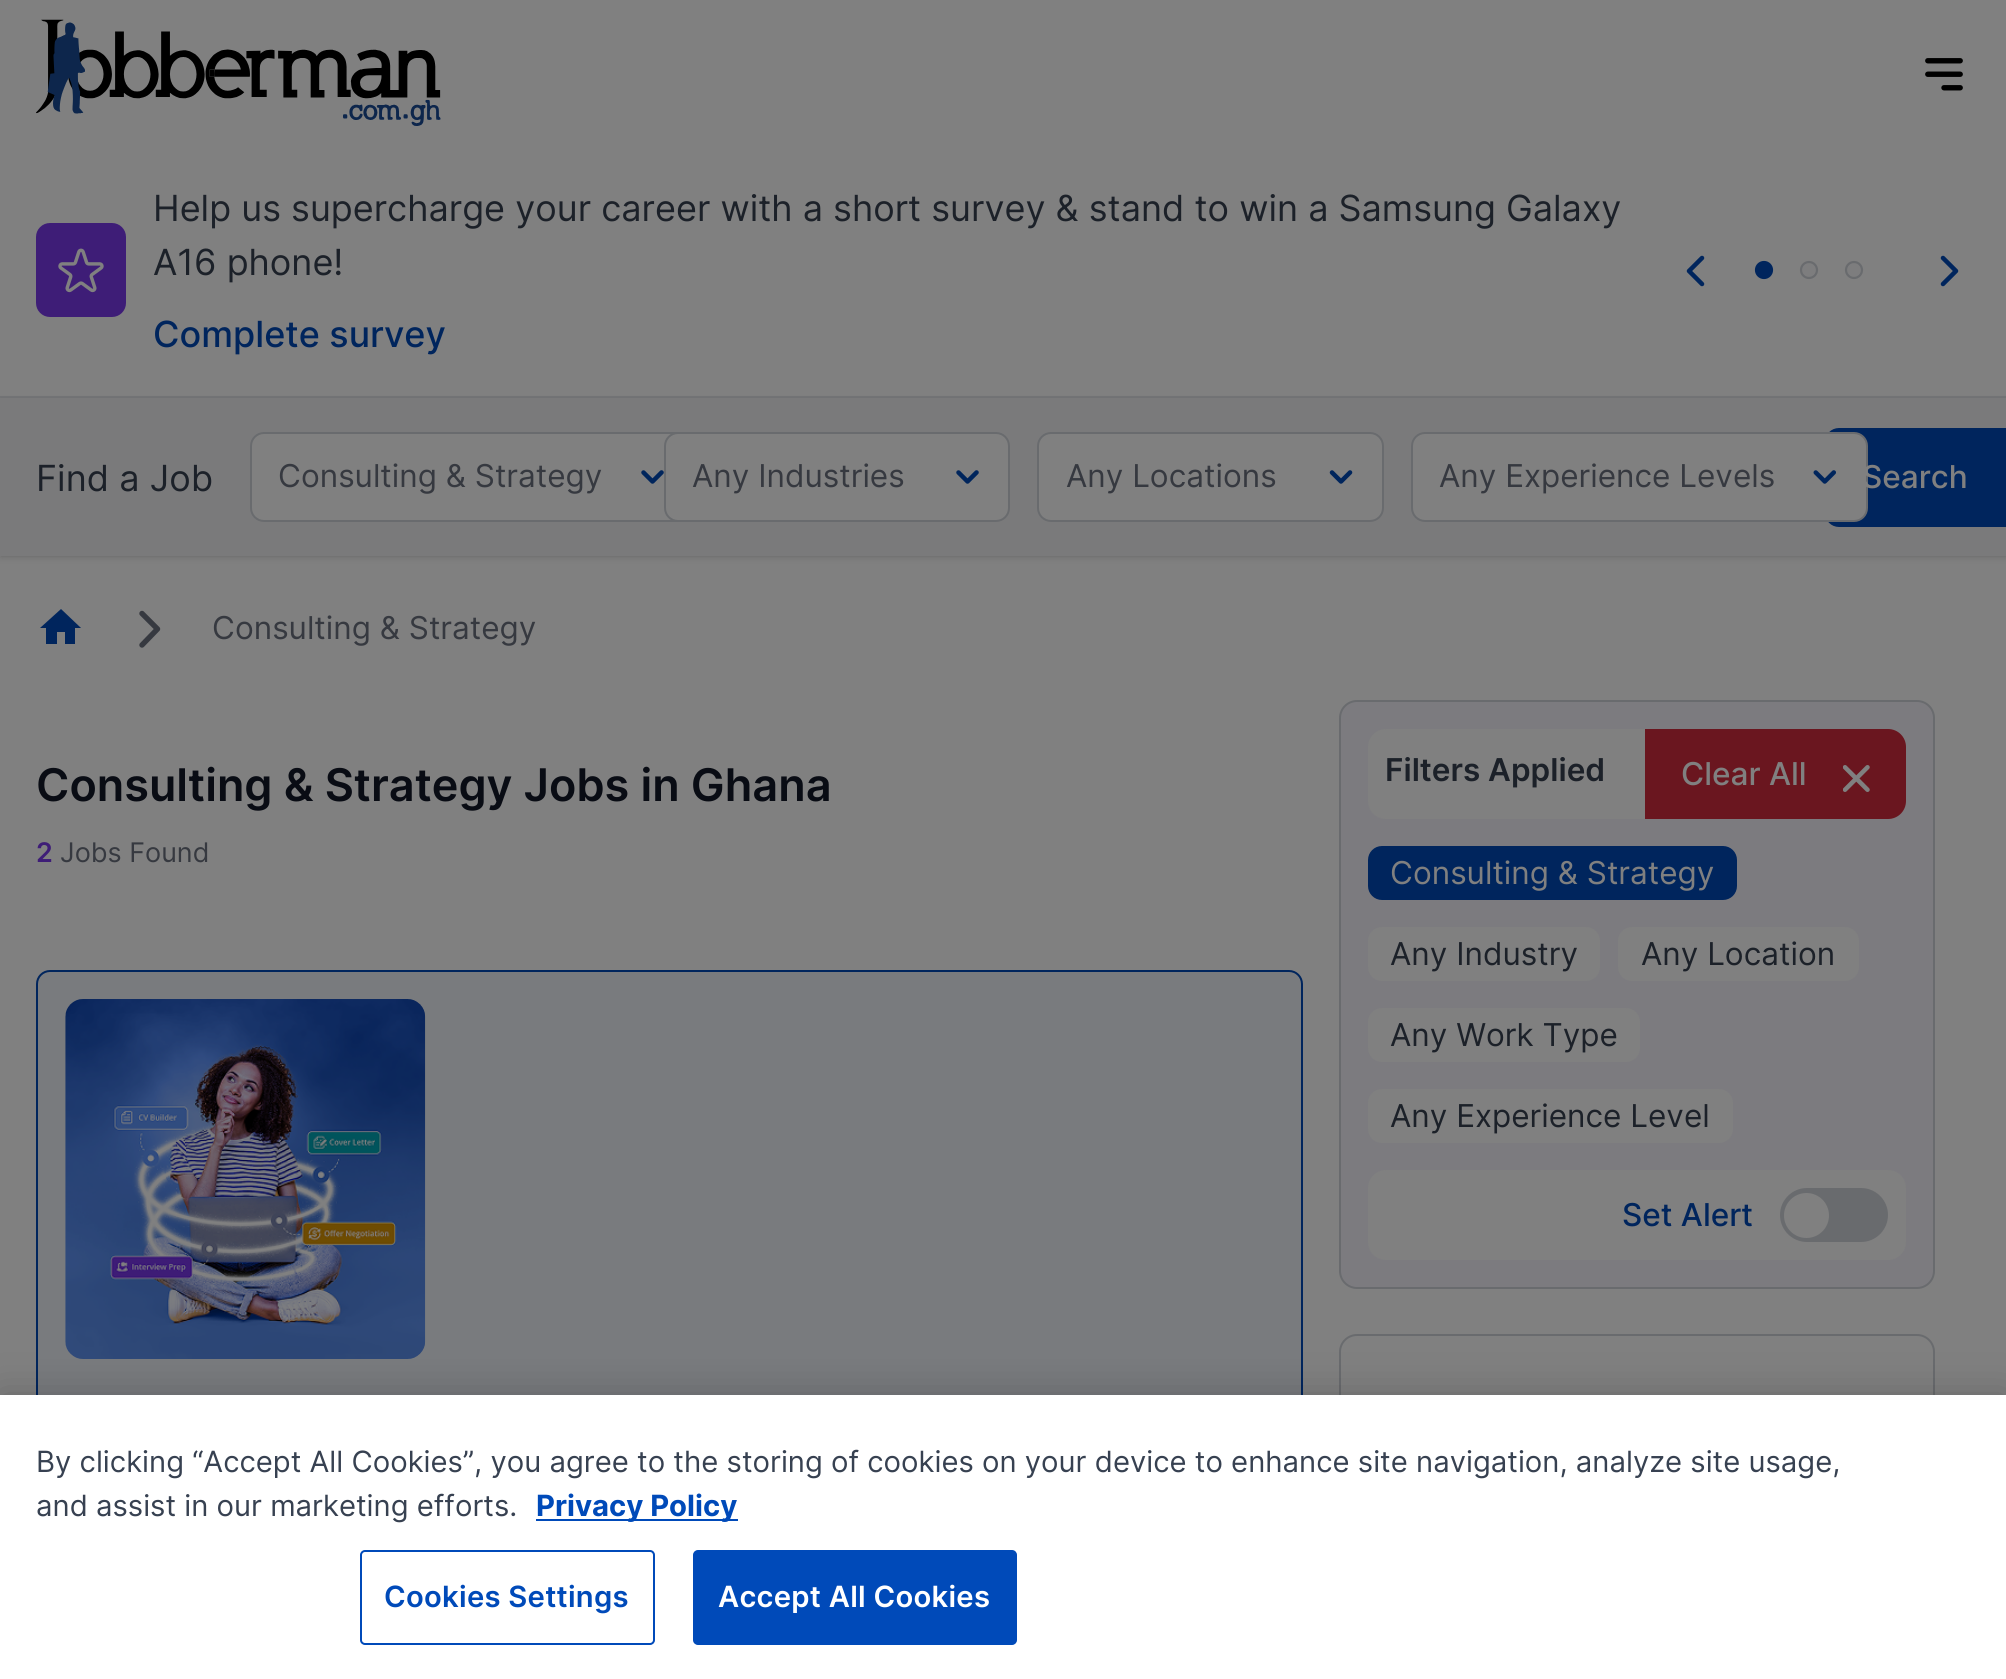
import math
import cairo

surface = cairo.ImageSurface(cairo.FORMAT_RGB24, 2006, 1679)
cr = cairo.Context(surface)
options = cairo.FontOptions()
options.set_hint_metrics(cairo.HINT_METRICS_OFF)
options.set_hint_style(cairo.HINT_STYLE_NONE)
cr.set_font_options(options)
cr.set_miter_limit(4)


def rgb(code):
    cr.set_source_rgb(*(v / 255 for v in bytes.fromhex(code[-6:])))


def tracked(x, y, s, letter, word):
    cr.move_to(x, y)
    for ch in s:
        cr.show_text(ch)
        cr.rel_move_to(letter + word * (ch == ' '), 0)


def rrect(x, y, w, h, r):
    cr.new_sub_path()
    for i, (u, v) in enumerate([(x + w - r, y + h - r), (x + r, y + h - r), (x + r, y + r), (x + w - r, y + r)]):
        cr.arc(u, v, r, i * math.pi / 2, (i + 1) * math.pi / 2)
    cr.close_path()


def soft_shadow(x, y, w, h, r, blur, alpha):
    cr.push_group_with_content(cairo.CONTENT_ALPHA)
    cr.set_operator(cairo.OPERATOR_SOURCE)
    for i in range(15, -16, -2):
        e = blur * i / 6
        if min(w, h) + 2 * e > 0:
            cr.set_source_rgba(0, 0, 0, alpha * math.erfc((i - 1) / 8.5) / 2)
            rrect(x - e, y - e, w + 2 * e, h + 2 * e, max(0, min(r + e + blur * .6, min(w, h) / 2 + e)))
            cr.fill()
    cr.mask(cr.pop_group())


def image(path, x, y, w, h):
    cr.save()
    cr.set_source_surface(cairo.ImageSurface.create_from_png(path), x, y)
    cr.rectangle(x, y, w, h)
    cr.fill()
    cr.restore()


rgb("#808080")
cr.paint()
image("img/1.png", 36, 19, 405, 107)
image("img/2.png", 1925, 58, 38, 33)
rgb("#737476")
cr.rectangle(0, 396, 2006, 2)
cr.fill()
rgb("#3e1d77")
rrect(36, 223, 90, 94, 14)
cr.fill()
image("img/3.png", 58, 248, 46, 45)
cr.new_path()
cr.move_to(1702, 258)
cr.line_to(1689, 271)
cr.line_to(1702, 284)
rgb("#00255d")
cr.set_line_width(4.5)
cr.set_line_cap(cairo.LINE_CAP_ROUND)
cr.set_line_join(cairo.LINE_JOIN_ROUND)
cr.stroke()
cr.arc(1764, 270, 8, 0, 2 * math.pi)
cr.fill_preserve()
cr.set_line_width(2.2)
cr.set_line_cap(cairo.LINE_CAP_BUTT)
cr.set_line_join(cairo.LINE_JOIN_MITER)
cr.stroke()
rgb("#7d7d7e")
cr.arc(1809, 270, 8, 0, 2 * math.pi)
cr.fill_preserve()
rgb("#696b6e")
cr.stroke()
rgb("#7d7d7e")
cr.arc(1854, 270, 8, 0, 2 * math.pi)
cr.fill_preserve()
rgb("#696b6e")
cr.stroke()
cr.new_path()
cr.move_to(1943, 258)
cr.line_to(1956, 271)
cr.line_to(1943, 284)
rgb("#00255d")
cr.set_line_width(4.5)
cr.set_line_cap(cairo.LINE_CAP_ROUND)
cr.set_line_join(cairo.LINE_JOIN_ROUND)
cr.stroke()
rgb("#000000")
soft_shadow(2, 403, 2003, 153, 0, 2, 0.1)
soft_shadow(0, 401, 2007, 157, 0, 3.5, 0.1)
rgb("#7a7a7b")
cr.rectangle(0, 398, 2006, 158)
cr.fill()
rgb("#808080")
rrect(251, 433, 443, 88, 13)
cr.fill_preserve()
rgb("#696b6e")
cr.set_line_width(2)
cr.set_line_cap(cairo.LINE_CAP_BUTT)
cr.set_line_join(cairo.LINE_JOIN_MITER)
cr.stroke()
image("img/4.png", 641, 470, 23, 14)
rgb("#808080")
rrect(665, 433, 344, 88, 13)
cr.fill_preserve()
rgb("#696b6e")
cr.stroke()
image("img/4.png", 956, 470, 23, 14)
rgb("#808080")
rrect(1038, 433, 345, 88, 13)
cr.fill_preserve()
rgb("#696b6e")
cr.stroke()
image("img/5.png", 1329, 470, 24, 14)
rgb("#00255d")
rrect(1825, 428, 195, 99, 14)
cr.fill()
rgb("#808080")
rrect(1412, 433, 455, 88, 13)
cr.fill_preserve()
rgb("#696b6e")
cr.stroke()
image("img/6.png", 1813, 470, 23, 14)
rgb("#00255d")
cr.new_path()
cr.move_to(57, 644)
cr.line_to(57, 632)
cr.line_to(65, 632)
cr.line_to(65, 644)
cr.line_to(75, 644)
cr.line_to(75, 628)
cr.line_to(81, 628)
cr.line_to(61, 609)
cr.line_to(40, 628)
cr.line_to(46, 628)
cr.line_to(46, 644)
cr.close_path()
cr.fill()
cr.new_path()
cr.move_to(142, 613.5)
cr.line_to(157.5, 629)
cr.line_to(142, 645)
rgb("#363940")
cr.set_line_width(5.4)
cr.set_line_cap(cairo.LINE_CAP_ROUND)
cr.set_line_join(cairo.LINE_JOIN_ROUND)
cr.stroke()
rgb("#797b7e")
rrect(37, 971, 1265, 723, 13)
cr.fill_preserve()
rgb("#00255d")
cr.set_line_width(2)
cr.set_line_cap(cairo.LINE_CAP_BUTT)
cr.set_line_join(cairo.LINE_JOIN_MITER)
cr.stroke()
image("img/7.png", 65, 999, 361, 360)
rgb("#7c7b7f")
rrect(1340, 701, 594, 587, 17)
cr.fill_preserve()
rgb("#696b6e")
cr.stroke()
rgb("#808080")
rrect(1368, 729, 538, 90, 18)
cr.fill()
rgb("#6a161f")
cr.new_path()
cr.move_to(1645, 729)
cr.line_to(1888, 729)
cr.curve_to(1898, 729, 1906, 737, 1906, 747)
cr.line_to(1906, 801)
cr.curve_to(1906, 811, 1898, 819, 1888, 819)
cr.line_to(1645, 819)
cr.close_path()
cr.fill()
image("img/8.png", 1843, 765, 27, 27)
rgb("#00255d")
rrect(1368, 846, 369, 54, 14)
cr.fill()
rgb("#808080")
rrect(1368, 927, 232, 54, 14)
cr.fill()
rrect(1618, 927, 241, 54, 14)
cr.fill()
rrect(1368, 1008, 272, 54, 14)
cr.fill()
rrect(1368, 1089, 365, 54, 14)
cr.fill()
rrect(1368, 1170, 538, 90, 18)
cr.fill()
rgb("#696b6e")
rrect(1780, 1188, 108, 54, 27)
cr.fill()
rgb("#808080")
cr.arc(1806.5, 1215.5, 22.5, 0, 2 * math.pi)
cr.fill()
rrect(1340, 1335, 594, 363, 17)
rgb("#696b6e")
cr.stroke()
rgb("#000000")
soft_shadow(0, 1395, 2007, 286, 0, 20, 0.2)
rgb("#ffffff")
cr.rectangle(0, 1395, 2006, 284)
cr.fill()
rgb("#004ab9")
cr.rectangle(536, 1519, 202, 2)
cr.fill()
rrect(361, 1551, 293, 93, 4)
cr.stroke()
rrect(694, 1551, 322, 93, 4)
cr.fill_preserve()
cr.stroke()
cr.select_font_face("Inter")
cr.set_font_size(36)
rgb("#1c2129")
cr.move_to(153, 221)
cr.show_text("Help us supercharge your career with a short survey & stand to win a Samsung Galaxy")
cr.move_to(153, 275)
cr.show_text("A16 phone!")
cr.select_font_face("Inter Medium")
rgb("#00255d")
cr.move_to(153, 347)
cr.show_text("Complete survey")
cr.select_font_face("Inter")
rgb("#1c2129")
cr.move_to(36, 491)
cr.show_text("Find a Job")
cr.set_font_size(31.5)
rgb("#363940")
for x, y, s in [
    (278, 487, "Consulting & Strategy"),
    (692, 487, "Any Industries"),
    (1066, 487, "Any Locations"),
    (1439, 487, "Any Experience Levels"),
]:
    cr.move_to(x, y)
    cr.show_text(s)
cr.select_font_face("Inter Medium")
rgb("#808080")
cr.move_to(1862, 488)
cr.show_text("Search")
cr.select_font_face("Inter")
rgb("#363940")
cr.move_to(212, 639)
cr.show_text("Consulting & Strategy")
cr.select_font_face("Inter SemiBold")
cr.set_font_size(45)
rgb("#090c14")
cr.move_to(36, 801)
cr.show_text("Consulting & Strategy Jobs in Ghana")
cr.set_font_size(27)
rgb("#3e1d77")
cr.move_to(36, 862)
cr.show_text("2")
cr.select_font_face("Inter")
rgb("#363940")
cr.move_to(60, 862)
cr.show_text("Jobs Found")
cr.select_font_face("Inter SemiBold")
cr.set_font_size(31.5)
rgb("#1c2129")
cr.move_to(1385, 781)
cr.show_text("Filters Applied")
cr.select_font_face("Inter Medium")
rgb("#808080")
cr.move_to(1681, 785)
cr.show_text("Clear All")
cr.select_font_face("Inter")
cr.move_to(1390, 884)
cr.show_text("Consulting & Strategy")
rgb("#1c2129")
for x, y, s in [
    (1390, 965, "Any Industry"),
    (1641, 965, "Any Location"),
    (1390, 1046, "Any Work Type"),
    (1390, 1127, "Any Experience Level"),
]:
    cr.move_to(x, y)
    cr.show_text(s)
cr.select_font_face("Inter Medium")
rgb("#00255d")
cr.move_to(1622, 1226)
cr.show_text("Set Alert")
cr.select_font_face("Inter")
cr.set_font_size(29.27)
rgb("#374151")
cr.move_to(36, 1472)
cr.show_text("By clicking “Accept All Cookies”, you agree to the storing of cookies on your device to enhance site navigation, analyze site usage,")
cr.move_to(36, 1516)
cr.show_text("and assist in our marketing efforts.")
cr.select_font_face("Inter", cairo.FONT_SLANT_NORMAL, cairo.FONT_WEIGHT_BOLD)
rgb("#004ab9")
cr.move_to(536, 1516)
cr.show_text("Privacy Policy")
cr.select_font_face("Inter SemiBold")
tracked(384, 1607, "Cookies Settings", 0.25, 0)
rgb("#ffffff")
tracked(718, 1607, "Accept All Cookies", 0.25, 0)
surface.write_to_png("page.png")
